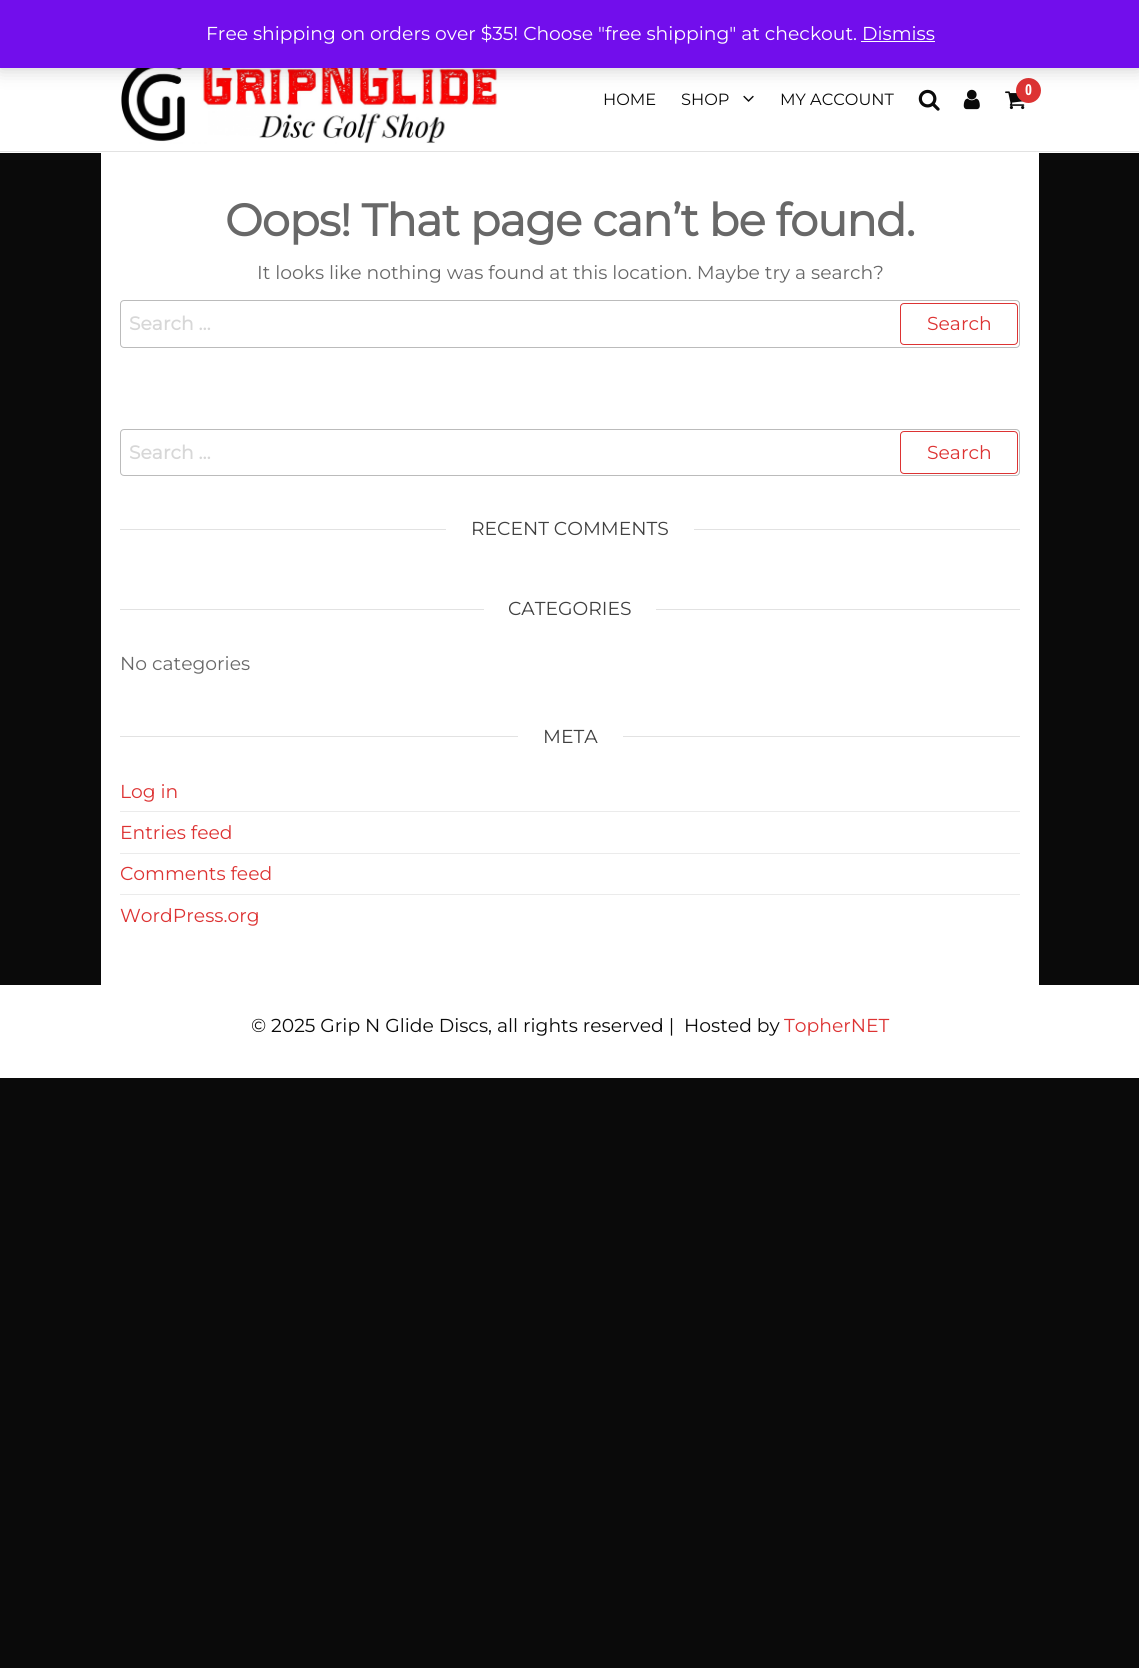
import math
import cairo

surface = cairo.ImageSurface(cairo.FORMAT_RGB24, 1139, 1668)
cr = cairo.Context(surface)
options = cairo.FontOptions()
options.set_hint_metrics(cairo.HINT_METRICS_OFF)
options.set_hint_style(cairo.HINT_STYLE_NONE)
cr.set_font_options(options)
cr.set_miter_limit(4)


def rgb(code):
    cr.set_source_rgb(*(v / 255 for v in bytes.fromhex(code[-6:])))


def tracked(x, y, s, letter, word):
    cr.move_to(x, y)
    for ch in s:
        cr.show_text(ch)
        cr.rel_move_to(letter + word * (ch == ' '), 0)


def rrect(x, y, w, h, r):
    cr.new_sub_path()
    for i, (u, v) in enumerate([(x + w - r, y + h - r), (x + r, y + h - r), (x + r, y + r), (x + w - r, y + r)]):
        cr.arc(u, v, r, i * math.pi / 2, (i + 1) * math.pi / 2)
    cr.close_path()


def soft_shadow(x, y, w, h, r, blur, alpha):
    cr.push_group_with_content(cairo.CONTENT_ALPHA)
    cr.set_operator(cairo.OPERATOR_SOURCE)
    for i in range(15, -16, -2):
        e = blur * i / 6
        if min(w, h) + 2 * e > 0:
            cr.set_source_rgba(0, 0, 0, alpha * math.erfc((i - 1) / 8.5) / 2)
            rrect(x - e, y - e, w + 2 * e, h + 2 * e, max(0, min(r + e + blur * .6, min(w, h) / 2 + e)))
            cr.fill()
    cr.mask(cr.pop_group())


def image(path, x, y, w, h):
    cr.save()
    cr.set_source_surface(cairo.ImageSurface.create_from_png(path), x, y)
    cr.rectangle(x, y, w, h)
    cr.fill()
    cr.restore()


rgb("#0a0a0a")
cr.paint()
rgb("#ffffff")
cr.rectangle(0, 68, 1139, 85)
cr.fill()
image("img/1.png", 120, 68, 378, 76)
image("img/2.png", 918, 89, 22, 22)
image("img/3.png", 963, 89, 17, 21)
image("img/4.png", 1005, 91, 20, 19)
rgb("#dd3333")
cr.arc(1028.5, 90.5, 12.5, 0, 2 * math.pi)
cr.fill()
image("img/5.png", 743, 95, 11, 7)
rgb("#000000")
soft_shadow(0, 1, 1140, 68, 0, 9.5, 0.2)
for x, y, w, h, color in [
    (0, 0, 1139, 68, "#720eec"),
    (0, 151, 1139, 1, "#e2e2e2"),
    (101, 153, 938, 832, "#ffffff"),
]:
    rgb(color)
    cr.rectangle(x, y, w, h)
    cr.fill()
rrect(120.5, 300.5, 899, 47, 3.5)
rgb("#bbbbbb")
cr.set_line_width(1)
cr.stroke()
rrect(900.5, 303.5, 117, 41, 3.5)
rgb("#dd3333")
cr.stroke()
rrect(120.5, 429.5, 899, 46, 3.5)
rgb("#bbbbbb")
cr.stroke()
rrect(900.5, 431.5, 117, 42, 3.5)
rgb("#dd3333")
cr.stroke()
for x, y, w, h, color in [
    (120, 529, 900, 1, "#e2e2e2"),
    (446, 529, 248, 1, "#ffffff"),
    (120, 609, 900, 1, "#e2e2e2"),
    (484, 609, 172, 1, "#ffffff"),
    (120, 736, 900, 1, "#e2e2e2"),
    (518, 736, 105, 1, "#ffffff"),
    (120, 811, 900, 1, "#ebebeb"),
    (120, 853, 900, 1, "#ebebeb"),
    (120, 894, 900, 1, "#ebebeb"),
    (0, 985, 1139, 93, "#ffffff"),
]:
    rgb(color)
    cr.rectangle(x, y, w, h)
    cr.fill()
cr.select_font_face("Montserrat Thin")
cr.set_font_size(18.75)
cr.move_to(206, 40)
cr.show_text("Free shipping on orders over $35! Choose \"free shipping\" at checkout. Dismiss")
rgb("#fcfbfe")
cr.rectangle(861, 41, 74, 1)
cr.fill()
cr.select_font_face("Open Sans Condensed", cairo.FONT_SLANT_NORMAL, cairo.FONT_WEIGHT_BOLD)
cr.set_font_size(15)
rgb("#ffffff")
cr.move_to(1025, 95)
cr.show_text("0")
cr.select_font_face("Montserrat Thin")
cr.set_font_size(16.25)
rgb("#0a0a0a")
for x, y, s in [
    (603, 105, "HOME"),
    (681, 105, "SHOP"),
    (780, 105, "MY ACCOUNT"),
]:
    cr.move_to(x, y)
    cr.show_text(s)
cr.select_font_face("Montserrat", cairo.FONT_SLANT_NORMAL, cairo.FONT_WEIGHT_BOLD)
cr.set_font_size(45)
rgb("#686868")
tracked(225, 236, "Oops! That page can’t be found.", -0.9, 0)
cr.select_font_face("Montserrat Thin")
cr.set_font_size(18.75)
cr.move_to(257, 279)
cr.show_text("It looks like nothing was found at this location. Maybe try a search?")
cr.select_font_face("Montserrat", cairo.FONT_SLANT_NORMAL, cairo.FONT_WEIGHT_BOLD)
rgb("#d7d7d7")
cr.move_to(129, 330)
cr.show_text("Search …")
cr.select_font_face("Montserrat Thin")
rgb("#dd3333")
cr.move_to(927, 330)
cr.show_text("Search")
cr.select_font_face("Montserrat", cairo.FONT_SLANT_NORMAL, cairo.FONT_WEIGHT_BOLD)
rgb("#d7d7d7")
cr.move_to(129, 459)
cr.show_text("Search …")
cr.select_font_face("Montserrat Thin")
rgb("#dd3333")
cr.move_to(927, 459)
cr.show_text("Search")
rgb("#404040")
cr.move_to(471, 535)
cr.show_text("RECENT COMMENTS")
cr.move_to(508, 615)
cr.show_text("CATEGORIES")
rgb("#686868")
cr.move_to(120, 670)
cr.show_text("No categories")
rgb("#404040")
cr.move_to(543, 743)
cr.show_text("META")
rgb("#dd3333")
for x, y, s in [
    (120, 798, "Log in"),
    (120, 839, "Entries feed"),
    (120, 880, "Comments feed"),
    (120, 922, "WordPress.org"),
]:
    cr.move_to(x, y)
    cr.show_text(s)
rgb("#0a0a0a")
cr.move_to(251, 1032)
cr.show_text("© 2025 Grip N Glide Discs, all rights reserved |  Hosted by")
rgb("#dd3333")
cr.move_to(784, 1032)
cr.show_text("TopherNET")
surface.write_to_png("page.png")
